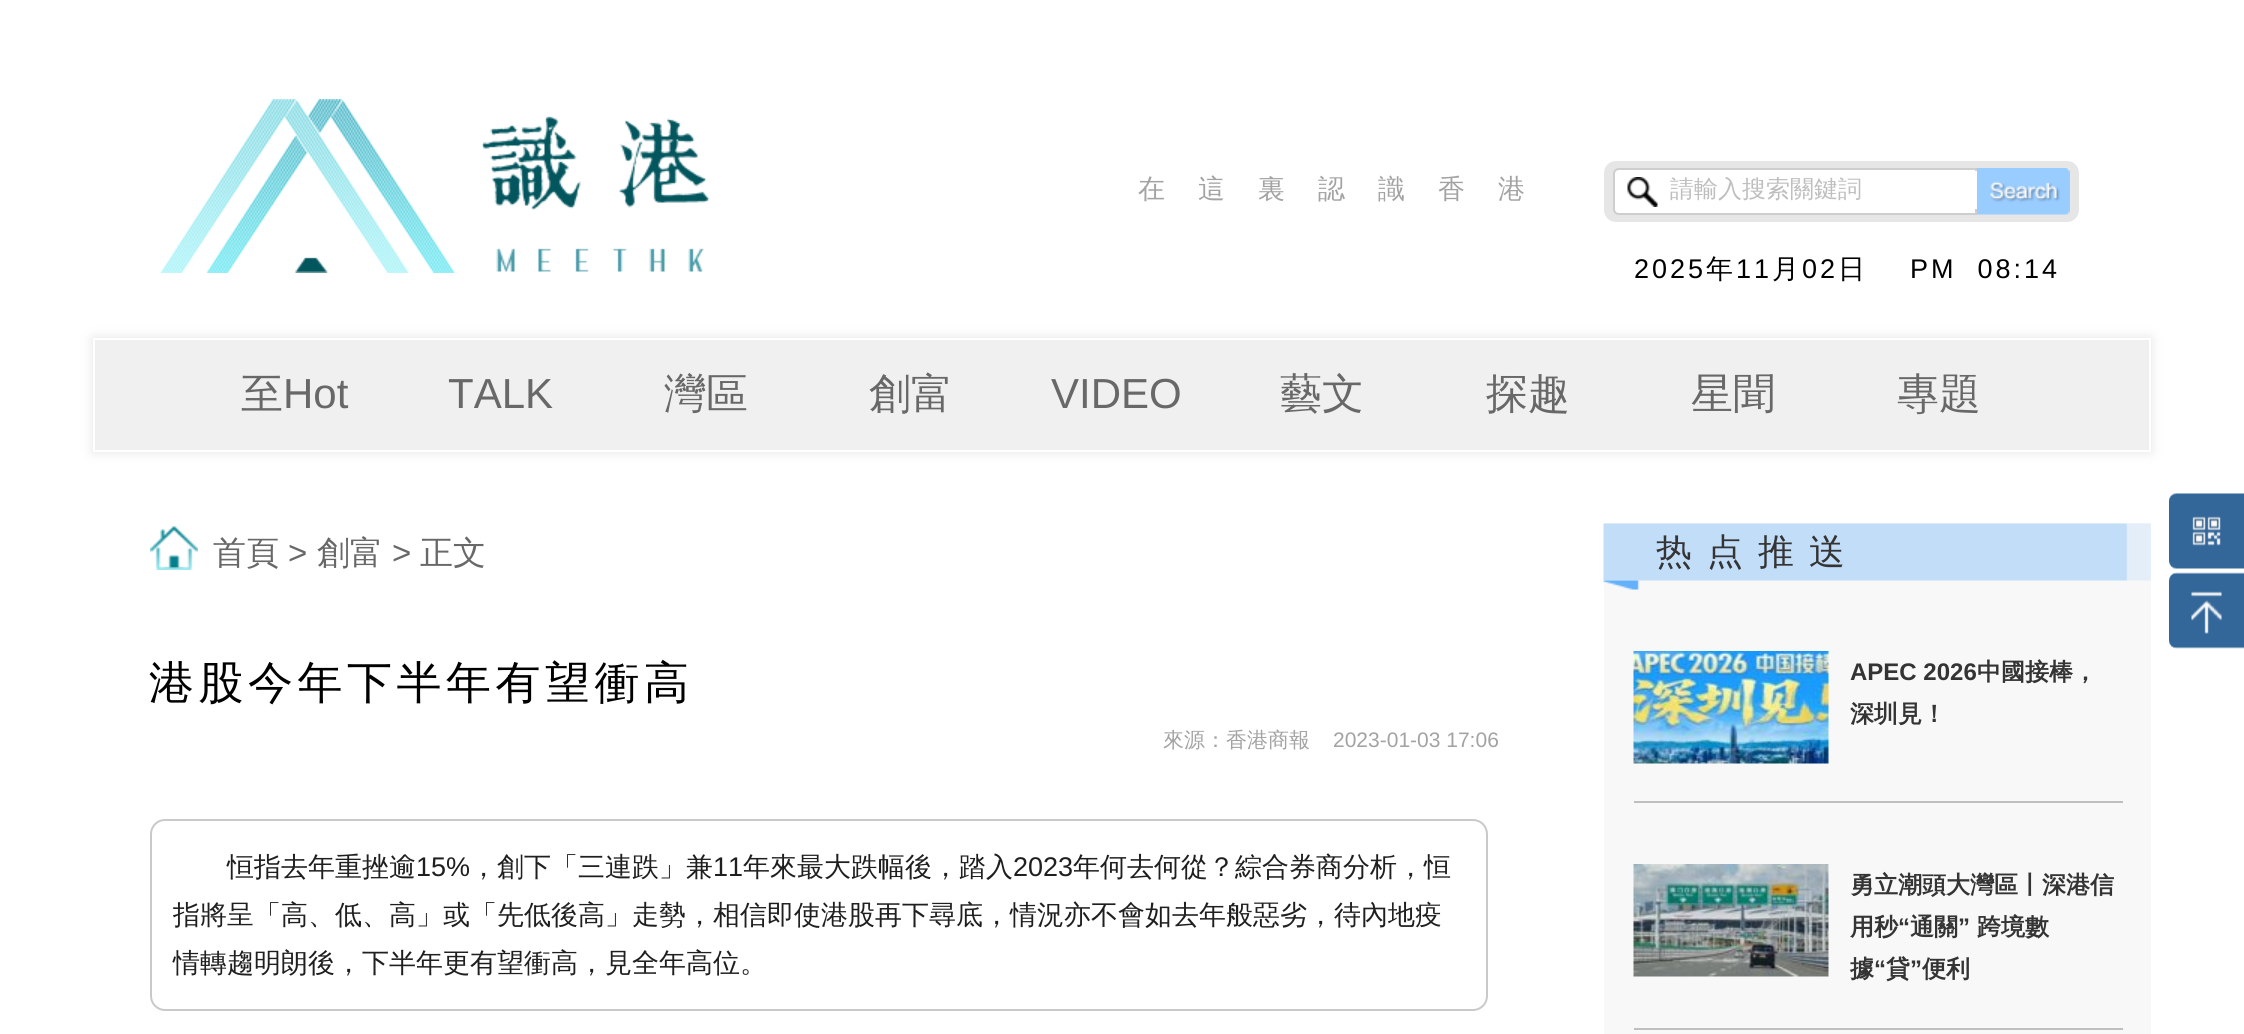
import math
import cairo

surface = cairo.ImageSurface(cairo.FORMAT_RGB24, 2244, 1034)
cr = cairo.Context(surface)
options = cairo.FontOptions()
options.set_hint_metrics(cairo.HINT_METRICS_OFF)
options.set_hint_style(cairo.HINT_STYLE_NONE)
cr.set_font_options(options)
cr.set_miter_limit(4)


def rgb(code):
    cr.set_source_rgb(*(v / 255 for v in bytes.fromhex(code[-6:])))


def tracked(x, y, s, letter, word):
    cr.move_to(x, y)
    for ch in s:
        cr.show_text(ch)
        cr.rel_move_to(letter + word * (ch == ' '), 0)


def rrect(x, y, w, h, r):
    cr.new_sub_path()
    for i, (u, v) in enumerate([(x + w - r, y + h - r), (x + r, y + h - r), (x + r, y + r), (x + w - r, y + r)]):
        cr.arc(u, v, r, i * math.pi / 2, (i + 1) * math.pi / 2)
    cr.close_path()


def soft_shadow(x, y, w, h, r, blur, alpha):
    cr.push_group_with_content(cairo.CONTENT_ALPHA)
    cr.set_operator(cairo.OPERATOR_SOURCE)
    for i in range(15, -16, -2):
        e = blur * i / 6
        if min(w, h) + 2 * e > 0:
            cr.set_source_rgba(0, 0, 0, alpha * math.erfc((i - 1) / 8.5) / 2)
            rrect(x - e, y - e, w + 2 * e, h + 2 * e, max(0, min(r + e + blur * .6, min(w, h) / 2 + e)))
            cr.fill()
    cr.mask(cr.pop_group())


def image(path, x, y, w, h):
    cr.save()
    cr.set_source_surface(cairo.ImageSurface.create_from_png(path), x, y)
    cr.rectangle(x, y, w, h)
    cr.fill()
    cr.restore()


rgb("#ffffff")
cr.paint()
image("img/1.png", 160, 99, 550, 174)
rgb("#e6e6e6")
rrect(1604, 161, 475, 61, 12)
cr.fill()
rgb("#ffffff")
cr.new_path()
cr.move_to(1619, 169)
cr.line_to(1976, 169)
cr.line_to(1976, 214)
cr.line_to(1619, 214)
cr.curve_to(1616, 214, 1614, 212, 1614, 209)
cr.line_to(1614, 174)
cr.curve_to(1614, 171, 1616, 169, 1619, 169)
cr.close_path()
cr.fill_preserve()
rgb("#cecece")
cr.stroke()
image("img/2.png", 1627, 177, 31, 30)
rgb("#ffffff")
cr.rectangle(1975, 171, 2, 38)
cr.fill()
rgb("#efefef")
cr.rectangle(2065, 168, 5, 44)
cr.fill()
image("img/3.png", 1977, 168, 93, 47)
rgb("#e5e5e5")
soft_shadow(93, 338, 2058, 114, 0, 6, 1)
rgb("#f0f0f0")
cr.rectangle(94, 339, 2056, 112)
cr.fill_preserve()
rgb("#ffffff")
cr.stroke()
rgb("#f8f8f8")
cr.rectangle(1604, 523, 547, 511)
cr.fill()
image("img/4.png", 150, 526, 48, 44)
rrect(151, 820, 1336, 190, 14)
rgb("#c9c9c9")
cr.stroke()
image("img/5.png", 1603, 523, 548, 58)
image("img/6.png", 1603, 580, 37, 10)
image("img/7.png", 1633, 651, 196, 113)
rgb("#bfbfbf")
cr.rectangle(1634, 801, 489, 2)
cr.fill()
image("img/8.png", 1633, 864, 196, 113)
cr.rectangle(1634, 1028, 489, 2)
cr.fill()
image("img/9.png", 2169, 493, 75, 76)
image("img/10.png", 2169, 572, 75, 77)
cr.select_font_face("WenQuanYi Zen Hei Medium")
cr.set_font_size(27)
rgb("#a3a3a3")
tracked(1138, 198, "在這裏認識香港", 33, 0)
cr.set_font_size(24)
rgb("#bebebe")
cr.move_to(1670, 197)
cr.show_text("請輸入搜索關鍵詞")
cr.select_font_face("Liberation Sans")
cr.set_font_size(27)
rgb("#000000")
tracked(1634, 278, "2025", 3, 0)
cr.select_font_face("WenQuanYi Zen Hei Medium")
tracked(1706, 278, "年", 3, 0)
cr.select_font_face("Liberation Sans")
tracked(1736, 278, "11", 3, 0)
cr.select_font_face("WenQuanYi Zen Hei Medium")
tracked(1772, 278, "月", 3, 0)
cr.select_font_face("Liberation Sans")
tracked(1802, 278, "02", 3, 0)
cr.select_font_face("WenQuanYi Zen Hei Medium")
tracked(1838, 278, "日", 3, 0)
cr.select_font_face("Liberation Sans")
tracked(1910, 278, "PM  08:14", 3, 0)
cr.select_font_face("WenQuanYi Zen Hei Medium")
cr.set_font_size(42)
rgb("#686868")
cr.move_to(241, 408)
cr.show_text("至")
cr.select_font_face("Liberation Sans")
cr.move_to(283, 408)
cr.show_text("Hot")
cr.move_to(448, 408)
cr.show_text("TALK")
cr.select_font_face("WenQuanYi Zen Hei Medium")
cr.move_to(664, 408)
cr.show_text("灣區")
cr.move_to(869, 408)
cr.show_text("創富")
cr.select_font_face("Liberation Sans")
cr.move_to(1051, 408)
cr.show_text("VIDEO")
cr.select_font_face("WenQuanYi Zen Hei Medium")
for x, y, s in [
    (1280, 408, "藝文"),
    (1486, 408, "探趣"),
    (1691, 408, "星聞"),
    (1897, 408, "專題"),
]:
    cr.move_to(x, y)
    cr.show_text(s)
cr.set_font_size(33)
cr.move_to(213, 564)
cr.show_text("首頁")
cr.select_font_face("Liberation Sans")
cr.move_to(288, 564)
cr.show_text(">")
cr.select_font_face("WenQuanYi Zen Hei Medium")
cr.move_to(317, 564)
cr.show_text("創富")
cr.select_font_face("Liberation Sans")
cr.move_to(392, 564)
cr.show_text(">")
cr.select_font_face("WenQuanYi Zen Hei Medium")
cr.move_to(420, 564)
cr.show_text("正文")
cr.set_font_size(45)
rgb("#000000")
tracked(149, 698, "港股今年下半年有望衝高", 4.5, 0)
cr.set_font_size(21)
rgb("#a3a3a3")
cr.move_to(1163, 747)
cr.show_text("來源：香港商報")
cr.select_font_face("Liberation Sans")
cr.move_to(1333, 747)
cr.show_text("2023-01-03 17:06")
cr.select_font_face("WenQuanYi Zen Hei Medium")
cr.set_font_size(27)
rgb("#1f1f1f")
cr.move_to(227, 876)
cr.show_text("恒指去年重挫逾")
cr.select_font_face("Liberation Sans")
cr.move_to(416, 876)
cr.show_text("15%")
cr.select_font_face("WenQuanYi Zen Hei Medium")
cr.move_to(470, 876)
cr.show_text("，創下「三連跌」兼")
cr.select_font_face("Liberation Sans")
cr.move_to(713, 876)
cr.show_text("11")
cr.select_font_face("WenQuanYi Zen Hei Medium")
cr.move_to(743, 876)
cr.show_text("年來最大跌幅後，踏入")
cr.select_font_face("Liberation Sans")
cr.move_to(1013, 876)
cr.show_text("2023")
cr.select_font_face("WenQuanYi Zen Hei Medium")
for x, y, s in [
    (1073, 876, "年何去何從？綜合券商分析，恒"),
    (173, 924, "指將呈「高、低、高」或「先低後高」走勢，相信即使港股再下尋底，情況亦不會如去年般惡劣，待內地疫"),
    (173, 972, "情轉趨明朗後，下半年更有望衝高，見全年高位。"),
]:
    cr.move_to(x, y)
    cr.show_text(s)
cr.set_font_size(36)
rgb("#343434")
tracked(1656, 564, "热点推送", 15, 0)
cr.select_font_face("Liberation Sans", cairo.FONT_SLANT_NORMAL, cairo.FONT_WEIGHT_BOLD)
cr.set_font_size(24)
cr.move_to(1850, 680)
cr.show_text("APEC 2026")
cr.select_font_face("WenQuanYi Zen Hei", cairo.FONT_SLANT_NORMAL, cairo.FONT_WEIGHT_BOLD)
for x, y, s in [
    (1977, 680, "中國接棒，"),
    (1850, 722, "深圳見！"),
    (1850, 893, "勇立潮頭大灣區丨深港信"),
    (1850, 935, "用秒"),
]:
    cr.move_to(x, y)
    cr.show_text(s)
cr.select_font_face("Liberation Sans", cairo.FONT_SLANT_NORMAL, cairo.FONT_WEIGHT_BOLD)
cr.move_to(1898, 935)
cr.show_text("“")
cr.select_font_face("WenQuanYi Zen Hei", cairo.FONT_SLANT_NORMAL, cairo.FONT_WEIGHT_BOLD)
cr.move_to(1910, 935)
cr.show_text("通關")
cr.select_font_face("Liberation Sans", cairo.FONT_SLANT_NORMAL, cairo.FONT_WEIGHT_BOLD)
cr.move_to(1958, 935)
cr.show_text("”")
cr.select_font_face("WenQuanYi Zen Hei", cairo.FONT_SLANT_NORMAL, cairo.FONT_WEIGHT_BOLD)
cr.move_to(1977, 935)
cr.show_text("跨境數")
cr.move_to(1850, 977)
cr.show_text("據")
cr.select_font_face("Liberation Sans", cairo.FONT_SLANT_NORMAL, cairo.FONT_WEIGHT_BOLD)
cr.move_to(1874, 977)
cr.show_text("“")
cr.select_font_face("WenQuanYi Zen Hei", cairo.FONT_SLANT_NORMAL, cairo.FONT_WEIGHT_BOLD)
cr.move_to(1886, 977)
cr.show_text("貸")
cr.select_font_face("Liberation Sans", cairo.FONT_SLANT_NORMAL, cairo.FONT_WEIGHT_BOLD)
cr.move_to(1910, 977)
cr.show_text("”")
cr.select_font_face("WenQuanYi Zen Hei", cairo.FONT_SLANT_NORMAL, cairo.FONT_WEIGHT_BOLD)
cr.move_to(1922, 977)
cr.show_text("便利")
surface.write_to_png("page.png")
